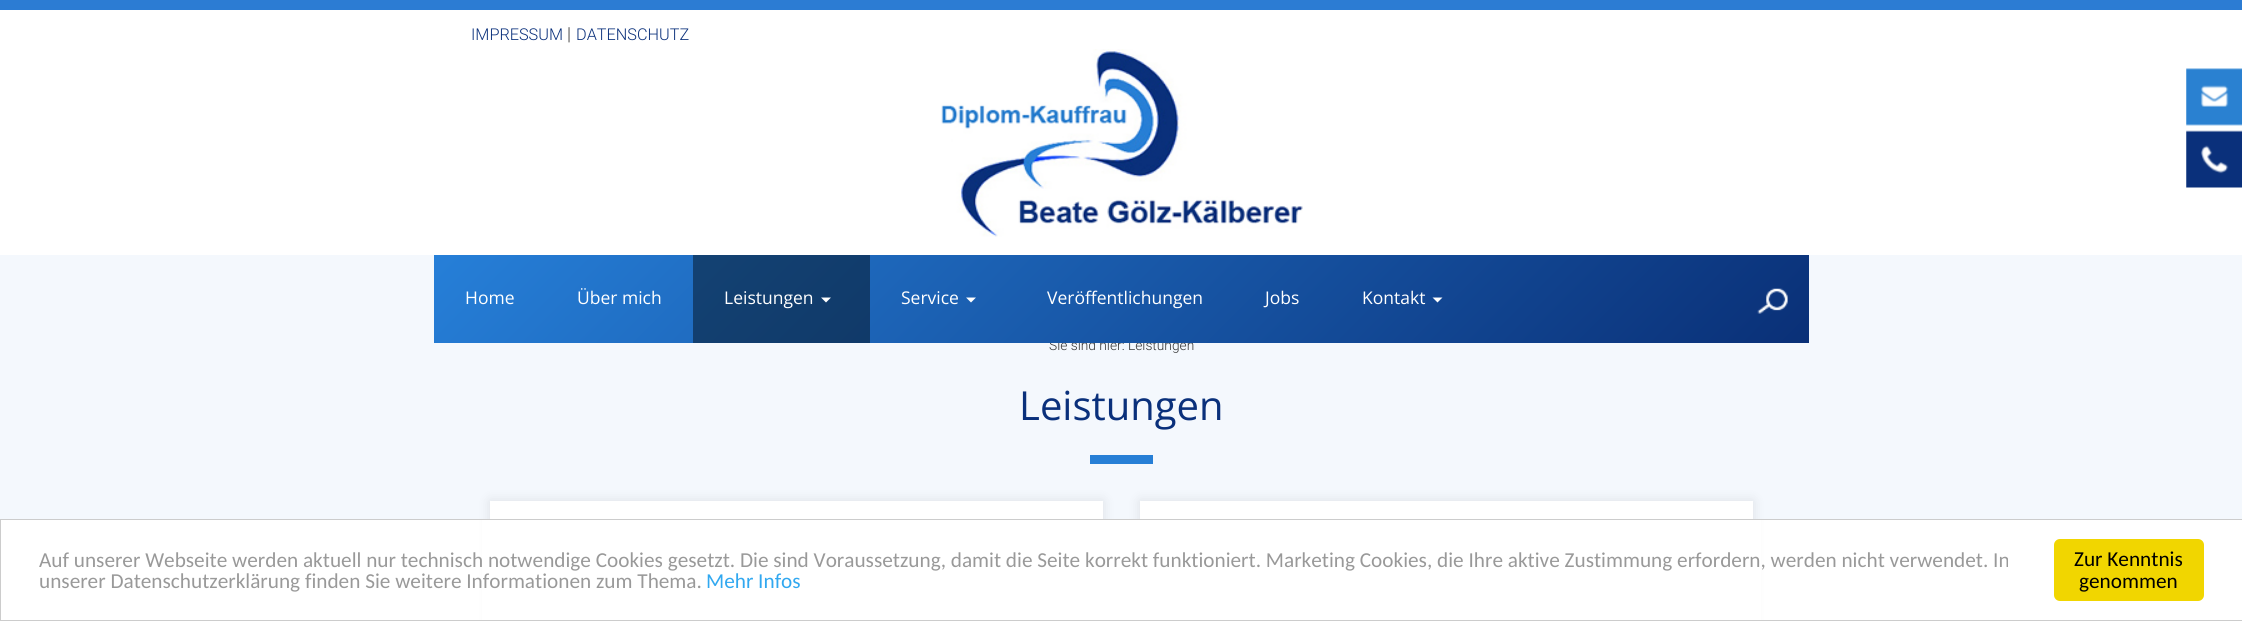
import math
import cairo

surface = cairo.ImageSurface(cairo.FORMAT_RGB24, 2242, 621)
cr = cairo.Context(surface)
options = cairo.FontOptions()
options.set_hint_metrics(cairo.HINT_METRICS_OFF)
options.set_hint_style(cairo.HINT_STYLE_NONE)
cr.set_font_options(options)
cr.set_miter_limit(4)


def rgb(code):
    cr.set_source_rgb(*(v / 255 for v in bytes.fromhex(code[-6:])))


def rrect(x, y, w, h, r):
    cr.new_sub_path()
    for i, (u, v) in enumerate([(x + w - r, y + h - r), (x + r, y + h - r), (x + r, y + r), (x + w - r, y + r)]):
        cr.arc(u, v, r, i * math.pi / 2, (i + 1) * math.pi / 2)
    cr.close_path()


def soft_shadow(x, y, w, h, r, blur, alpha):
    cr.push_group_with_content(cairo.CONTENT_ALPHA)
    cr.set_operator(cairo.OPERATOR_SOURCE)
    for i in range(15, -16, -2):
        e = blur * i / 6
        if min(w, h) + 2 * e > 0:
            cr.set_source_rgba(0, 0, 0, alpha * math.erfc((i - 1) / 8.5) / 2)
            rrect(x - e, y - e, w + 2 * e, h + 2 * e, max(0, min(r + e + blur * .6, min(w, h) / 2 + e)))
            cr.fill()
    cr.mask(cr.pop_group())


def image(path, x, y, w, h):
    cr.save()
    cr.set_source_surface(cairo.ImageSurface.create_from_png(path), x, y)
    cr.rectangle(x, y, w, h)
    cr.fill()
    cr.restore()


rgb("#ffffff")
cr.paint()
rgb("#2c7cd3")
cr.rectangle(0, 0, 2242, 10)
cr.fill()
image("img/1.png", 941, 49, 362, 188)
image("img/2.png", 2186, 68, 56, 58)
image("img/3.png", 2186, 130, 56, 58)
rgb("#f4f8fd")
cr.rectangle(0, 255, 2242, 264)
cr.fill()
rgb("#277fd6")
cr.rectangle(1090, 455, 63, 9)
cr.fill()
rgb("#000000")
soft_shadow(490, 501, 613, 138, 0, 6, 0.1)
rgb("#ffffff")
cr.rectangle(490, 501, 613, 18)
cr.fill()
rgb("#000000")
soft_shadow(1140, 501, 613, 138, 0, 6, 0.1)
rgb("#ffffff")
cr.rectangle(1140, 501, 613, 18)
cr.fill()
cr.rectangle(482, 520, 1279, 100)
cr.fill()
cr.rectangle(0.5, 519.5, 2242, 101)
rgb("#cccccc")
cr.set_line_width(1)
cr.stroke()
rgb("#f1d600")
rrect(2054, 539, 150, 62, 6)
cr.fill()
cr.select_font_face("Roboto Light")
cr.set_font_size(16.25)
rgb("#0a307b")
cr.move_to(471, 40)
cr.show_text("IMPRESSUM")
cr.set_font_size(18)
rgb("#333333")
cr.move_to(567, 40)
cr.show_text("|")
cr.set_font_size(16.25)
rgb("#0a307b")
cr.move_to(576, 40)
cr.show_text("DATENSCHUTZ")
cr.set_font_size(13.75)
rgb("#333333")
cr.move_to(1049, 350)
cr.show_text("Sie sind hier: Leistungen")
gradient = cairo.LinearGradient(756, -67, 1487, 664)
gradient.add_color_stop_rgba(0, 0.149, 0.498, 0.847, 1)
gradient.add_color_stop_rgba(1, 0.039, 0.188, 0.467, 1)
cr.set_source(gradient)
cr.rectangle(434, 255, 1375, 88)
cr.fill()
rgb("#ffffff")
cr.new_path()
cr.move_to(1432.5, 297.5)
cr.line_to(1442.5, 297.5)
cr.line_to(1437.5, 302.5)
cr.close_path()
cr.fill()
cr.select_font_face("Open Sans")
cr.set_font_size(17.5)
for x, y, s in [
    (1362, 304, "Kontakt"),
    (1265, 304, "Jobs"),
    (1047, 304, "Veröffentlichungen"),
]:
    cr.move_to(x, y)
    cr.show_text(s)
cr.new_path()
cr.move_to(966, 297.5)
cr.line_to(976, 297.5)
cr.line_to(971, 302.5)
cr.close_path()
cr.fill()
cr.move_to(901, 304)
cr.show_text("Service")
gradient = cairo.LinearGradient(756, -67, 1487, 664)
gradient.add_color_stop_rgba(0, 0.086, 0.29, 0.49, 1)
gradient.add_color_stop_rgba(1, 0.024, 0.11, 0.271, 1)
cr.set_source(gradient)
cr.rectangle(693, 255, 177, 88)
cr.fill()
rgb("#ffffff")
cr.new_path()
cr.move_to(821, 297.5)
cr.line_to(831, 297.5)
cr.line_to(826, 302.5)
cr.close_path()
cr.fill()
for x, y, s in [
    (724, 304, "Leistungen"),
    (577, 304, "Über mich"),
    (465, 304, "Home"),
]:
    cr.move_to(x, y)
    cr.show_text(s)
image("img/4.png", 1757, 288, 31, 26)
cr.set_font_size(40)
rgb("#0a307b")
cr.move_to(1019, 420)
cr.show_text("Leistungen")
cr.select_font_face("Carlito")
cr.set_font_size(21.25)
rgb("#999999")
cr.move_to(39, 567)
cr.show_text("Auf unserer Webseite werden aktuell nur technisch notwendige Cookies gesetzt. Die sind Voraussetzung, damit die Seite korrekt funktioniert. Marketing Cookies, die Ihre aktive Zustimmung erfordern, werden nicht verwendet. In")
cr.move_to(39, 588)
cr.show_text("unserer Datenschutzerklärung finden Sie weitere Informationen zum Thema.")
rgb("#31a8f0")
cr.move_to(706, 588)
cr.show_text("Mehr Infos")
rgb("#000000")
cr.move_to(2074, 566)
cr.show_text("Zur Kenntnis")
cr.move_to(2079, 588)
cr.show_text("genommen")
surface.write_to_png("page.png")
